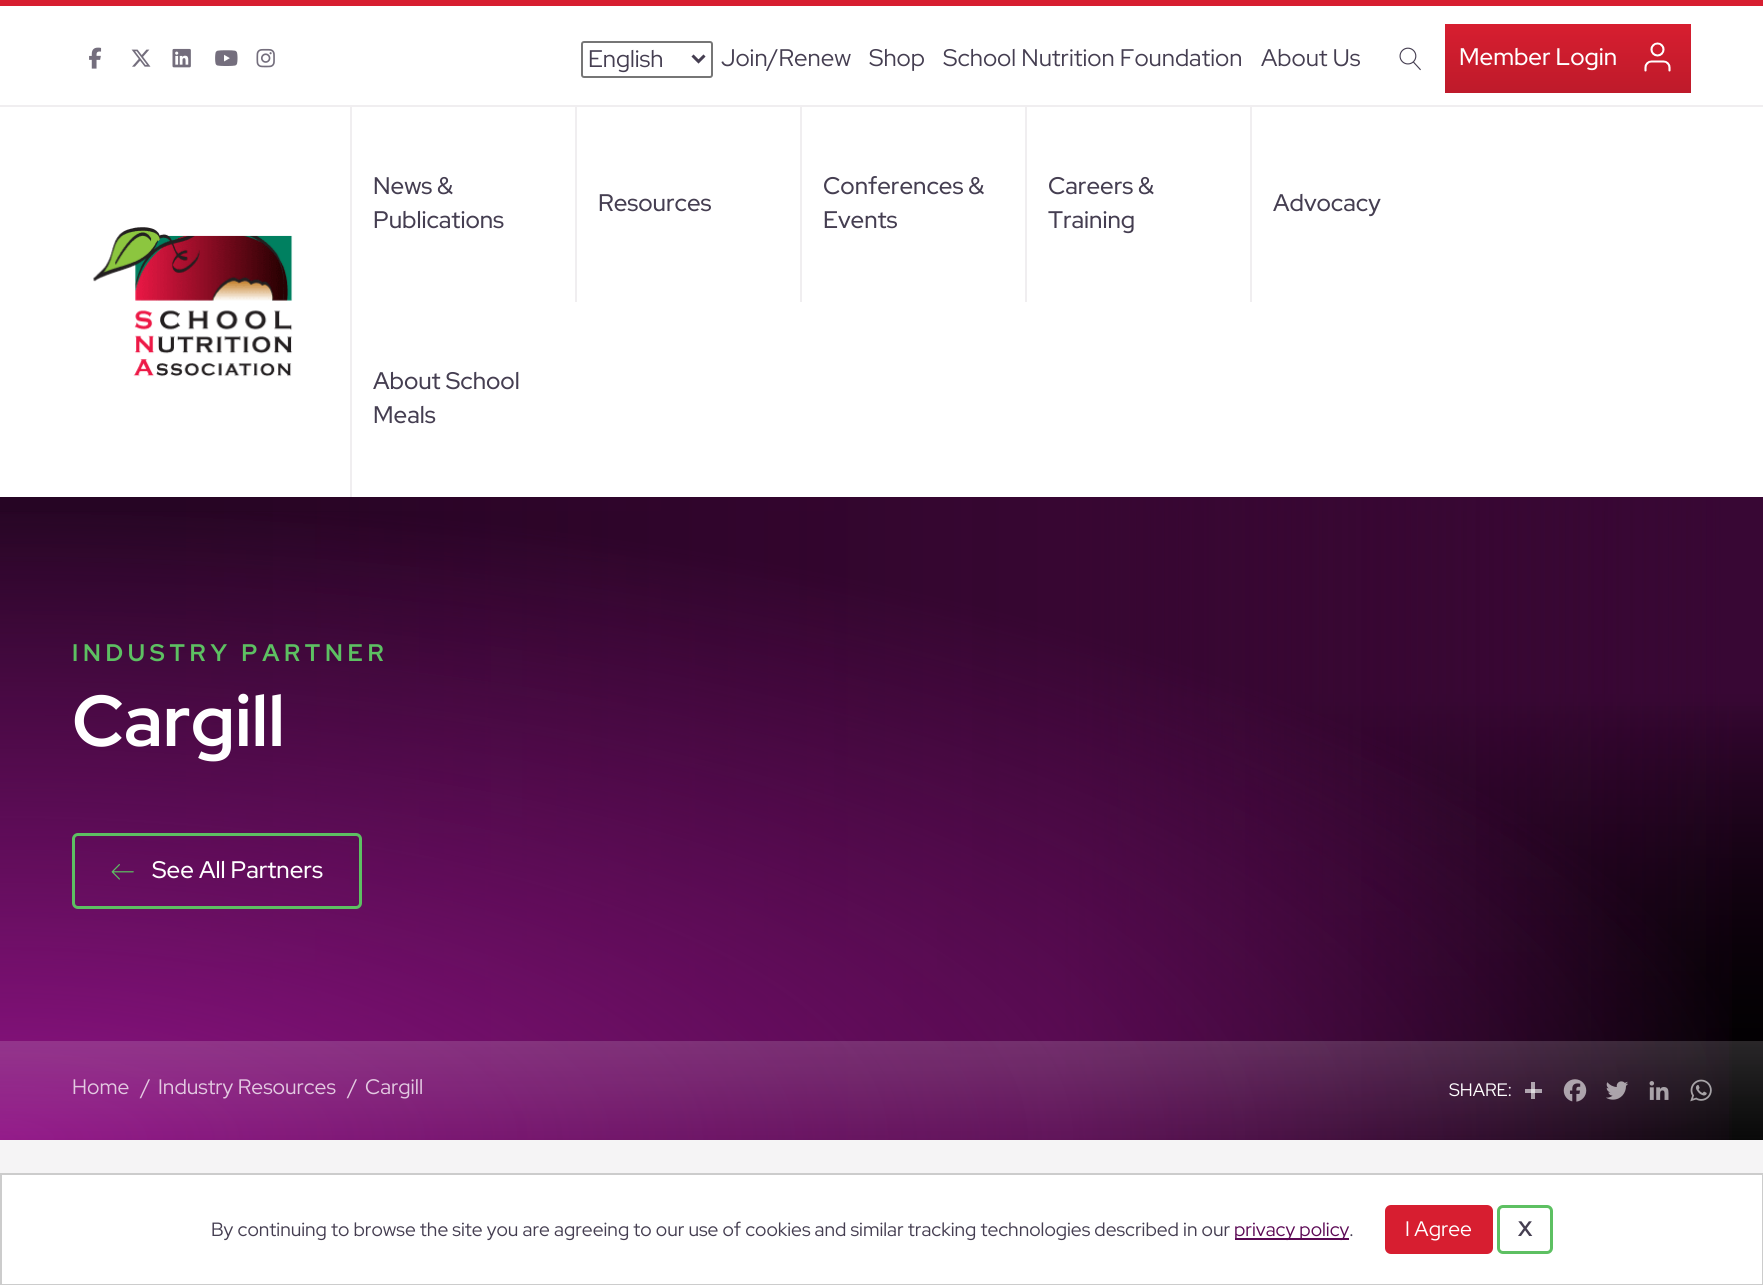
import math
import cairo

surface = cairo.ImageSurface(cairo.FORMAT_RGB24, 1763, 1285)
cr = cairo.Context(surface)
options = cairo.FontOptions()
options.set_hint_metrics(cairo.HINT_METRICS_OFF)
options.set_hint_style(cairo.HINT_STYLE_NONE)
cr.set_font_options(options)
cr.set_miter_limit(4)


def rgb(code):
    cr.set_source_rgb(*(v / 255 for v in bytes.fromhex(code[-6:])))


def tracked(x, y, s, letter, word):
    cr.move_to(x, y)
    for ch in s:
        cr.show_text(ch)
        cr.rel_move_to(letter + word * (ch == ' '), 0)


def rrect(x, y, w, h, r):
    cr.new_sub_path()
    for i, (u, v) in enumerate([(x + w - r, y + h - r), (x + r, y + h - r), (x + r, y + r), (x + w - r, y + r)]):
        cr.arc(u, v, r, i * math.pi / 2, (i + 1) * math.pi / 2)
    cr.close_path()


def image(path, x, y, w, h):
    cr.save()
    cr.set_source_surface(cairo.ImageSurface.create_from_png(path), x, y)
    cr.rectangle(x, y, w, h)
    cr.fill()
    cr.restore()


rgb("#ffffff")
cr.paint()
rgb("#d71e30")
cr.rectangle(0, 0, 1763, 6)
cr.fill()
rgb("#f0eef0")
cr.rectangle(0, 105, 1763, 2)
cr.fill()
image("img/1.png", 89, 47, 13, 22)
image("img/2.png", 131, 49, 20, 18)
image("img/3.png", 172, 48, 19, 20)
image("img/4.png", 215, 50, 23, 16)
image("img/5.png", 256, 48, 19, 20)
rrect(582, 42, 130, 35, 2)
rgb("#767676")
cr.stroke()
cr.new_path()
cr.move_to(692.5, 55.5)
cr.line_to(698.5, 61.5)
cr.line_to(704.5, 55.5)
rgb("#453e51")
cr.set_line_width(3)
cr.stroke()
image("img/6.png", 1399, 47, 22, 24)
gradient = cairo.LinearGradient(1445, 24, 1445, 174)
gradient.add_color_stop_rgba(0, 0.843, 0.118, 0.188, 1)
gradient.add_color_stop_rgba(1, 0.631, 0.086, 0.141, 1)
cr.set_source(gradient)
cr.rectangle(1445, 24, 246, 69)
cr.fill()
image("img/7.png", 1644, 42, 27, 30)
image("img/8.png", 93, 227, 200, 150)
for x, y, w, h, color in [
    (350, 107, 2, 390, "#f0eef0"),
    (575, 107, 2, 195, "#f0eef0"),
    (800, 107, 2, 195, "#f0eef0"),
    (1025, 107, 2, 195, "#f0eef0"),
    (1250, 107, 2, 195, "#f0eef0"),
    (0, 1140, 1763, 33, "#f5f4f5"),
]:
    rgb(color)
    cr.rectangle(x, y, w, h)
    cr.fill()
gradient = cairo.LinearGradient(882, 1140, 882, 496)
gradient.add_color_stop_rgba(0, 0, 0, 0, 1)
gradient.add_color_stop_rgba(0.7, 0.22, 0.027, 0.204, 1)
cr.set_source(gradient)
cr.rectangle(0, 497, 1763, 640)
cr.fill()
gradient = cairo.LinearGradient(0, 818, 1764, 818)
gradient.add_color_stop_rgba(0.1, 0.145, 0.016, 0.133, 0.9)
gradient.add_color_stop_rgba(0.6, 0.216, 0.024, 0.196, 1)
gradient.add_color_stop_rgba(1, 0.216, 0.024, 0.196, 0)
cr.set_source(gradient)
cr.rectangle(0, 497, 1732, 640)
cr.fill()
gradient = cairo.RadialGradient(0, 0, 0, 0, 0, 1)
gradient.set_matrix(cairo.Matrix(1 / 1764, 0, 0, 1 / 644, -1 * 0 / 1764, -1 * 1140 / 644))
gradient.add_color_stop_rgba(0, 0.565, 0.075, 0.525, 1)
gradient.add_color_stop_rgba(1, 0.565, 0.075, 0.525, 0)
cr.set_source(gradient)
cr.rectangle(0, 512, 1729, 625)
cr.fill()
gradient = cairo.LinearGradient(882, 1140, 882, 496)
gradient.add_color_stop_rgba(0, 0, 0, 0, 1)
gradient.add_color_stop_rgba(0.7, 0, 0, 0, 0)
cr.set_source(gradient)
cr.rectangle(0, 706, 1763, 434)
cr.fill()
gradient = cairo.LinearGradient(0, 818, 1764, 818)
gradient.add_color_stop_rgba(0.1, 0.145, 0.016, 0.133, 0.9)
gradient.add_color_stop_rgba(0.6, 0.216, 0.024, 0.196, 1)
gradient.add_color_stop_rgba(1, 0.216, 0.024, 0.196, 0)
cr.set_source(gradient)
cr.rectangle(0, 511, 1732, 629)
cr.fill()
gradient = cairo.RadialGradient(0, 0, 0, 0, 0, 1)
gradient.set_matrix(cairo.Matrix(1 / 1764, 0, 0, 1 / 644, -1 * 0 / 1764, -1 * 1140 / 644))
gradient.add_color_stop_rgba(0, 0.565, 0.075, 0.525, 1)
gradient.add_color_stop_rgba(1, 0.565, 0.075, 0.525, 0)
cr.set_source(gradient)
cr.rectangle(0, 512, 1729, 628)
cr.fill()
rrect(73.5, 834.5, 287, 73, 4.5)
rgb("#5dc062")
cr.stroke()
image("img/9.png", 111, 864, 23, 16)
gradient = cairo.LinearGradient(882, 1041, 882, 1170)
gradient.add_color_stop_rgba(0, 1, 1, 1, 0.15)
gradient.add_color_stop_rgba(1, 1, 1, 1, 0)
cr.set_source(gradient)
cr.rectangle(0, 1041, 1763, 99)
cr.fill()
cr.set_source_rgba(1, 1, 1, 0.6)
cr.rectangle(1531, 1082, 4, 17)
cr.fill()
cr.rectangle(1525, 1089, 17, 4)
cr.fill()
image("img/10.png", 1563, 1079, 24, 23)
image("img/11.png", 1606, 1081, 22, 19)
image("img/12.png", 1649, 1081, 20, 19)
image("img/13.png", 1690, 1079, 22, 23)
cr.rectangle(1, 1174, 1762, 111)
rgb("#cccccc")
cr.set_line_width(2)
cr.stroke()
rgb("#5c0a55")
cr.rectangle(1235, 1238, 114, 2)
cr.fill()
rgb("#d71e30")
rrect(1386.5, 1206.5, 105, 46, 4.5)
cr.fill_preserve()
cr.set_line_width(3)
cr.stroke()
rrect(1498.5, 1206.5, 53, 46, 4.5)
rgb("#5dc062")
cr.stroke()
cr.select_font_face("Red Hat Display")
cr.set_font_size(24)
rgb("#453e51")
for x, y, s in [
    (588, 67, "English"),
    (721, 66, "Join/Renew"),
    (869, 66, "Shop"),
    (943, 66, "School Nutrition Foundation"),
    (1261, 66, "About Us"),
]:
    cr.move_to(x, y)
    cr.show_text(s)
cr.select_font_face("Red Hat Display Medium")
rgb("#ffffff")
cr.move_to(1459, 65)
cr.show_text("Member Login")
rgb("#453e51")
for x, y, s in [
    (373, 194, "News &"),
    (373, 228, "Publications"),
    (598, 211, "Resources"),
    (823, 194, "Conferences &"),
    (823, 228, "Events"),
    (1048, 194, "Careers &"),
    (1048, 228, "Training"),
    (1273, 211, "Advocacy"),
    (373, 389, "About School"),
    (373, 423, "Meals"),
]:
    cr.move_to(x, y)
    cr.show_text(s)
cr.select_font_face("Red Hat Display", cairo.FONT_SLANT_NORMAL, cairo.FONT_WEIGHT_BOLD)
rgb("#5dc062")
tracked(72, 661, "INDUSTRY PARTNER", 4.75, 0)
cr.set_font_size(72)
rgb("#ffffff")
cr.move_to(72, 746)
cr.show_text("Cargill")
cr.select_font_face("Red Hat Display Medium")
cr.set_font_size(24)
cr.move_to(152, 878)
cr.show_text("See All Partners")
cr.select_font_face("Red Hat Display")
cr.set_font_size(21)
rgb("#e3c9e1")
for x, y, s in [
    (72, 1094, "Home"),
    (141, 1094, "/"),
    (158, 1094, "Industry Resources"),
    (348, 1094, "/"),
    (365, 1094, "Cargill"),
]:
    cr.move_to(x, y)
    cr.show_text(s)
cr.set_font_size(18)
rgb("#ffffff")
cr.move_to(1449, 1096)
cr.show_text("SHARE:")
cr.set_font_size(19.2)
rgb("#453e51")
cr.move_to(211, 1236)
cr.show_text("By continuing to browse the site you are agreeing to our use of cookies and similar tracking technologies described in our")
rgb("#5c0a55")
cr.move_to(1234, 1236)
cr.show_text("privacy policy")
rgb("#453e51")
cr.move_to(1349, 1236)
cr.show_text(".")
cr.set_font_size(21)
rgb("#ffffff")
cr.move_to(1405, 1236)
cr.show_text("I Agree")
cr.select_font_face("Red Hat Display", cairo.FONT_SLANT_NORMAL, cairo.FONT_WEIGHT_BOLD)
rgb("#453e51")
cr.move_to(1518, 1236)
cr.show_text("X")
surface.write_to_png("page.png")
